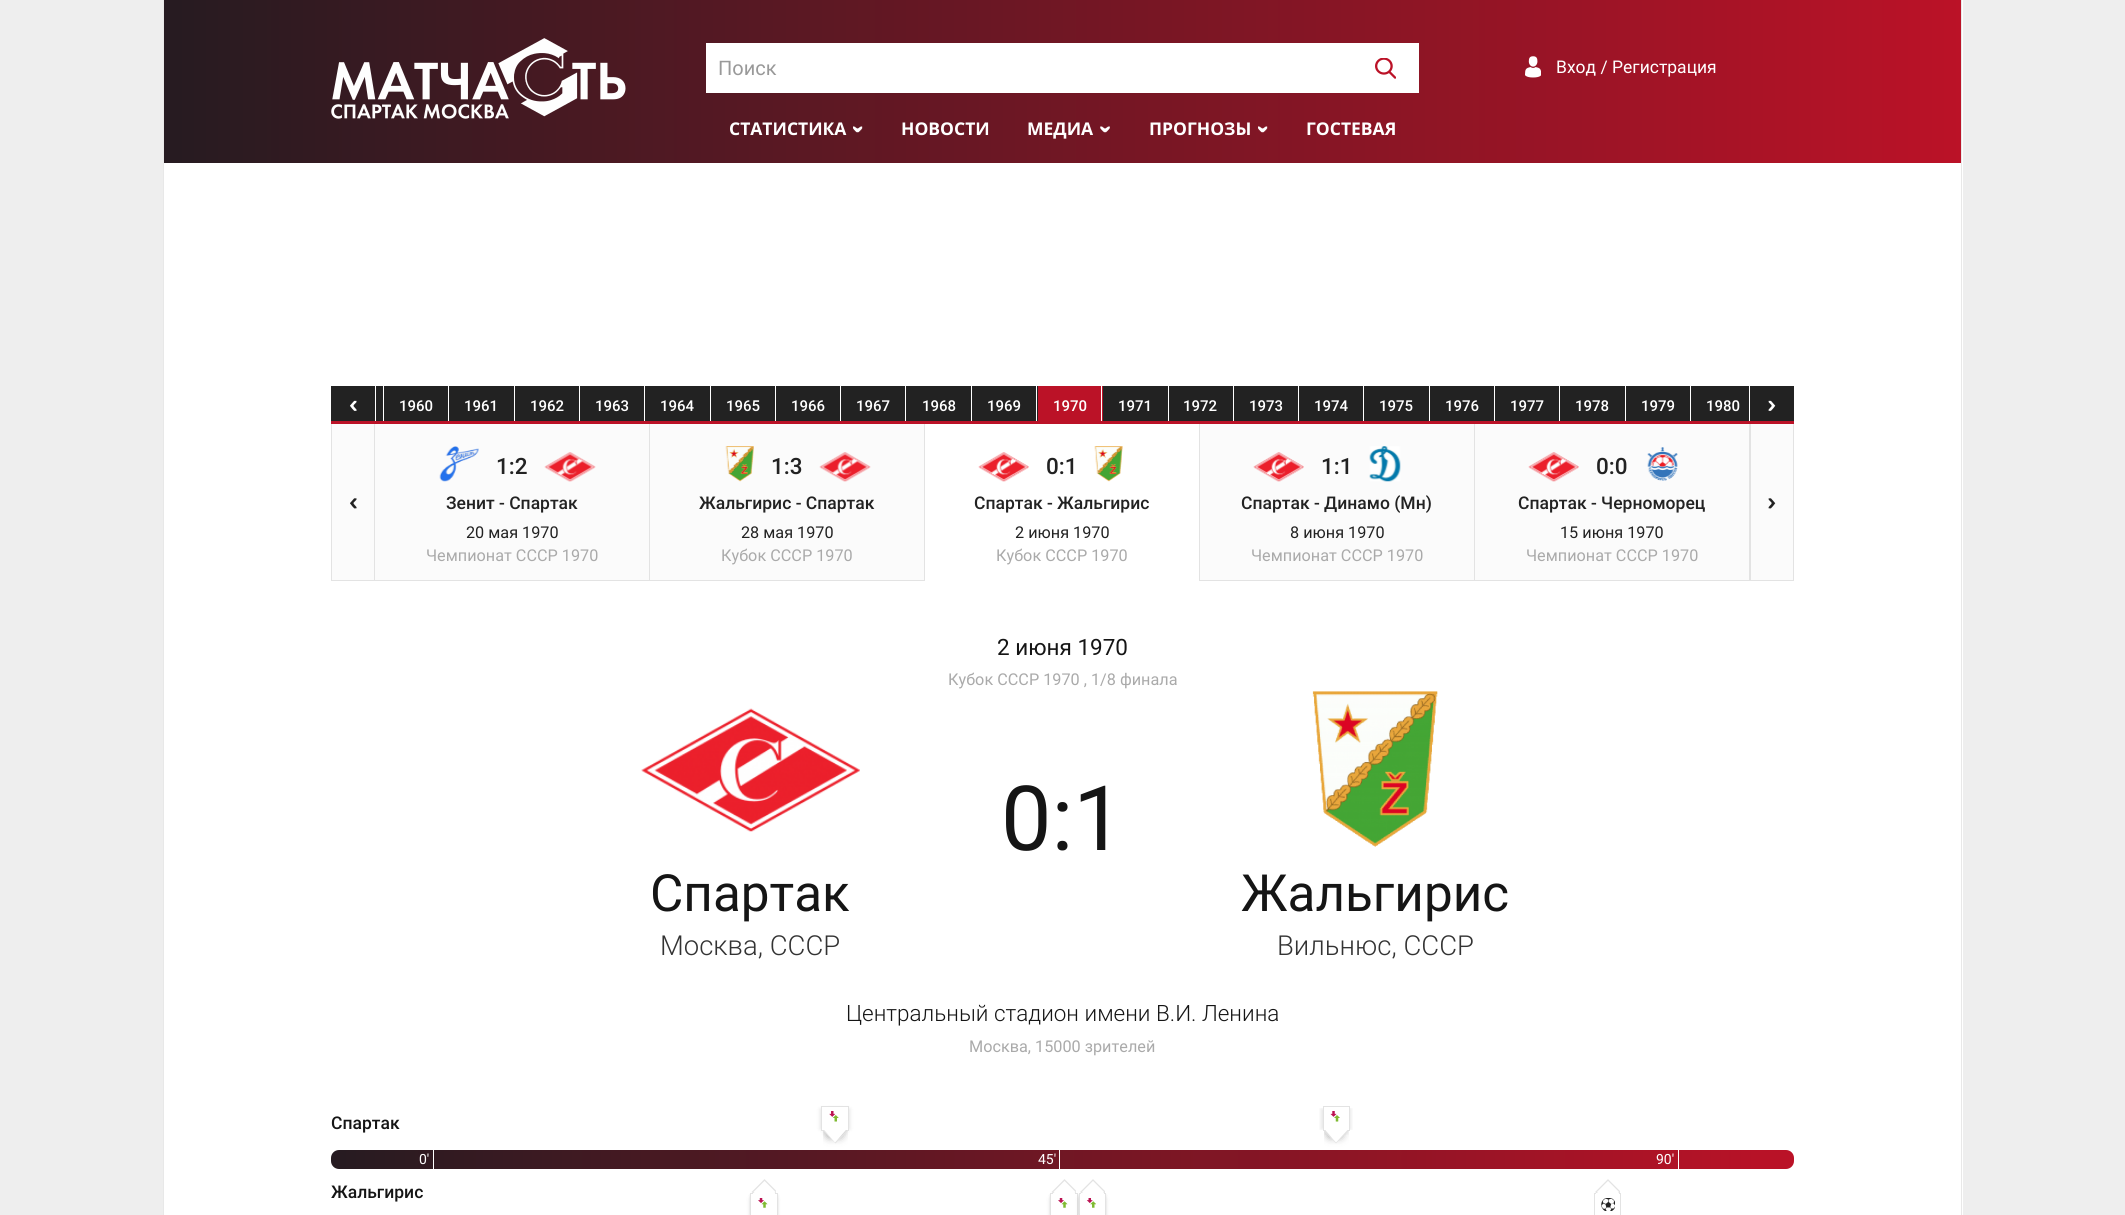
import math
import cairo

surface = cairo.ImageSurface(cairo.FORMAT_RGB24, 2125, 1215)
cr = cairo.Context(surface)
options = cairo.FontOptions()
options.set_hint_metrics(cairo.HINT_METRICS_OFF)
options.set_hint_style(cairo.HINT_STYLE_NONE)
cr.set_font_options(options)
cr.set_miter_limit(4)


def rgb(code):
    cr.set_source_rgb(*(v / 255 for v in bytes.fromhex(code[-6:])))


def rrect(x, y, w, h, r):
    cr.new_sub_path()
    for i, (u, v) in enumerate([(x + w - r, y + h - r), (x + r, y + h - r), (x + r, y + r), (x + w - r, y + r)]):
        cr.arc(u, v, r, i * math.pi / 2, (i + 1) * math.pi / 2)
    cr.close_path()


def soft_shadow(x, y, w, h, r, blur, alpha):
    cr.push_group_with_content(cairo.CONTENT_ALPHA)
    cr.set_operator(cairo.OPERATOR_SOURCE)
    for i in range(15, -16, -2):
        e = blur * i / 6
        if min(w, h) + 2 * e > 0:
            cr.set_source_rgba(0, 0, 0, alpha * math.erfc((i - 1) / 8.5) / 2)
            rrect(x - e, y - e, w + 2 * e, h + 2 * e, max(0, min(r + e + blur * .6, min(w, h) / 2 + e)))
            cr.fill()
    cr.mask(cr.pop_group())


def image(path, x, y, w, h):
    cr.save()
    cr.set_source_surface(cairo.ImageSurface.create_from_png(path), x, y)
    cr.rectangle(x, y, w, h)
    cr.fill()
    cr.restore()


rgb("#eeeeee")
cr.paint()
for x, y, w, h, color in [
    (164, 0, 1799, 1215, "#ffffff"),
    (1961, 0, 1, 1215, "#e8e8e8"),
    (163, 0, 1, 1215, "#e8e8e8"),
]:
    rgb(color)
    cr.rectangle(x, y, w, h)
    cr.fill()
gradient = cairo.LinearGradient(164, 81, 1961, 81)
gradient.add_color_stop_rgba(0, 0.149, 0.106, 0.129, 1)
gradient.add_color_stop_rgba(1, 0.733, 0.071, 0.153, 1)
cr.set_source(gradient)
cr.rectangle(164, 0, 1797, 163)
cr.fill()
image("img/1.png", 331, 38, 295, 81)
rgb("#ffffff")
cr.rectangle(706, 43, 713, 50)
cr.fill()
image("img/2.png", 1375, 58, 21, 21)
image("img/3.png", 1525, 56, 16, 22)
image("img/4.png", 853, 126, 10, 7)
image("img/5.png", 1100, 126, 10, 7)
image("img/6.png", 1258, 126, 10, 7)
rgb("#222222")
cr.rectangle(331, 386, 1463, 35)
cr.fill()
rgb("#bb1227")
cr.rectangle(331, 421, 1463, 3)
cr.fill()
image("img/7.png", 350, 400, 7, 11)
for x, y, w, h, color in [
    (1749, 386, 1, 35, "#ffffff"),
    (375, 386, 1, 35, "#ffffff"),
    (383, 386, 1, 35, "#ffffff"),
    (448, 386, 1, 35, "#ffffff"),
    (514, 386, 1, 35, "#ffffff"),
    (579, 386, 1, 35, "#ffffff"),
    (644, 386, 1, 35, "#ffffff"),
    (710, 386, 1, 35, "#ffffff"),
    (775, 386, 1, 35, "#ffffff"),
    (840, 386, 1, 35, "#ffffff"),
    (905, 386, 1, 35, "#ffffff"),
    (971, 386, 1, 35, "#ffffff"),
    (1036, 386, 1, 35, "#ffffff"),
    (1038, 386, 65, 35, "#bb1227"),
    (1101, 386, 1, 35, "#ffffff"),
    (1168, 386, 1, 35, "#ffffff"),
    (1233, 386, 1, 35, "#ffffff"),
    (1298, 386, 1, 35, "#ffffff"),
    (1363, 386, 1, 35, "#ffffff"),
    (1429, 386, 1, 35, "#ffffff"),
    (1494, 386, 1, 35, "#ffffff"),
    (1559, 386, 1, 35, "#ffffff"),
    (1625, 386, 1, 35, "#ffffff"),
    (1690, 386, 1, 35, "#ffffff"),
]:
    rgb(color)
    cr.rectangle(x, y, w, h)
    cr.fill()
image("img/8.png", 1768, 400, 8, 11)
rgb("#fbfbfb")
cr.rectangle(332, 424, 42, 156)
cr.fill()
image("img/9.png", 350, 498, 7, 11)
for x, y, w, h, color in [
    (374, 424, 1, 157, "#e3e3e3"),
    (331, 580, 318, 1, "#e3e3e3"),
    (331, 424, 1, 157, "#e3e3e3"),
    (1751, 424, 42, 156, "#fbfbfb"),
]:
    rgb(color)
    cr.rectangle(x, y, w, h)
    cr.fill()
image("img/10.png", 1768, 498, 8, 11)
for x, y, w, h, color in [
    (1793, 424, 1, 157, "#e3e3e3"),
    (1750, 580, 44, 1, "#e3e3e3"),
    (1749, 424, 2, 157, "#e3e3e3"),
    (649, 424, 1, 157, "#e3e3e3"),
    (375, 424, 274, 156, "#fbfbfb"),
]:
    rgb(color)
    cr.rectangle(x, y, w, h)
    cr.fill()
image("img/11.png", 439, 446, 40, 36)
image("img/12.png", 544, 452, 52, 30)
for x, y, w, h, color in [
    (924, 424, 1, 157, "#e3e3e3"),
    (650, 424, 274, 156, "#fbfbfb"),
    (650, 580, 274, 1, "#e3e3e3"),
]:
    rgb(color)
    cr.rectangle(x, y, w, h)
    cr.fill()
image("img/13.png", 725, 446, 29, 36)
image("img/12.png", 819, 452, 52, 30)
cr.rectangle(1199, 424, 1, 157)
cr.fill()
image("img/14.png", 978, 452, 51, 30)
image("img/15.png", 1094, 446, 29, 36)
for x, y, w, h, color in [
    (1474, 424, 1, 157, "#e3e3e3"),
    (1200, 424, 274, 156, "#fbfbfb"),
    (1200, 580, 274, 1, "#e3e3e3"),
]:
    rgb(color)
    cr.rectangle(x, y, w, h)
    cr.fill()
image("img/16.png", 1253, 452, 51, 30)
image("img/17.png", 1369, 446, 32, 36)
rgb("#fbfbfb")
cr.rectangle(1475, 424, 274, 156)
cr.fill()
rgb("#e3e3e3")
cr.rectangle(1475, 580, 274, 1)
cr.fill()
image("img/16.png", 1528, 452, 51, 30)
image("img/18.png", 1647, 447, 31, 34)
image("img/19.png", 641, 708, 219, 124)
image("img/20.png", 1312, 691, 126, 156)
rgb("#000000")
soft_shadow(824, 1113, 22, 20, 0, 2, 0.1)
soft_shadow(828, 1109, 22, 20, 0, 2, 0.1)
soft_shadow(820, 1109, 23, 20, 0, 2, 0.1)
rgb("#ffffff")
cr.rectangle(821.5, 1106.5, 27, 24)
cr.fill_preserve()
rgb("#e3e3e3")
cr.set_line_width(1)
cr.stroke()
image("img/21.png", 829, 1111, 10, 11)
gradient = cairo.LinearGradient(331, 1159, 1794, 1159)
gradient.add_color_stop_rgba(0, 0.149, 0.106, 0.129, 1)
gradient.add_color_stop_rgba(1, 0.733, 0.071, 0.153, 1)
cr.set_source(gradient)
rrect(331, 1150, 1463, 19, 8)
cr.fill()
cr.save()
cr.rectangle(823, 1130, 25, 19)
cr.clip()
rgb("#000000")
soft_shadow(828, 1123, 13, 13, 0, 4.5, 0.5)
cr.restore()
cr.save()
cr.rectangle(823, 1130, 25, 19)
cr.clip()
cr.new_path()
cr.move_to(835.5, 1118.5)
cr.line_to(847.5, 1130.5)
cr.line_to(835.5, 1142.5)
cr.line_to(823.5, 1130.5)
cr.close_path()
rgb("#e3e3e3")
cr.set_line_width(1.3)
cr.stroke()
cr.restore()
rgb("#ffffff")
cr.new_path()
cr.move_to(824, 1130)
cr.line_to(846, 1130)
cr.line_to(835, 1142.5)
cr.close_path()
cr.fill()
cr.save()
cr.rectangle(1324, 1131, 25, 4)
cr.clip()
rgb("#000000")
soft_shadow(1325, 1113, 23, 20, 0, 2, 0.1)
cr.restore()
cr.save()
cr.rectangle(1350, 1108, 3, 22)
cr.clip()
rgb("#000000")
soft_shadow(1329, 1109, 22, 20, 0, 2, 0.1)
cr.restore()
cr.save()
cr.rectangle(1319, 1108, 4, 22)
cr.clip()
rgb("#000000")
soft_shadow(1321, 1109, 23, 20, 0, 2, 0.1)
cr.restore()
cr.rectangle(1323.5, 1106.5, 26, 24)
rgb("#e3e3e3")
cr.stroke()
image("img/22.png", 1330, 1111, 10, 11)
cr.save()
cr.rectangle(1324, 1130, 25, 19)
cr.clip()
rgb("#000000")
soft_shadow(1329, 1123, 12, 13, 0, 4.5, 0.5)
cr.restore()
cr.save()
cr.rectangle(1324, 1130, 25, 19)
cr.clip()
cr.new_path()
cr.move_to(1336, 1118.5)
cr.line_to(1348, 1130.5)
cr.line_to(1336, 1142.5)
cr.line_to(1324, 1130.5)
cr.close_path()
cr.set_line_width(1.3)
cr.stroke()
cr.restore()
rgb("#ffffff")
cr.new_path()
cr.move_to(1325, 1130)
cr.line_to(1347.5, 1130)
cr.line_to(1336, 1142.5)
cr.close_path()
cr.fill()
for x, y, w, h, color in [
    (433, 1150, 1, 19, "#ffffff"),
    (1059, 1150, 1, 19, "#ffffff"),
    (1678, 1150, 1, 19, "#ffffff"),
]:
    rgb(color)
    cr.rectangle(x, y, w, h)
    cr.fill()
rgb("#000000")
soft_shadow(750, 1195, 23, 20, 0, 1, 0.1)
soft_shadow(755, 1195, 23, 20, 0, 1, 0.1)
soft_shadow(751, 1199, 25, 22, 0, 3, 0.1)
rgb("#ffffff")
cr.rectangle(750.5, 1193.5, 27, 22)
cr.fill_preserve()
rgb("#e3e3e3")
cr.stroke()
cr.save()
cr.rectangle(751, 1174, 25, 19)
cr.clip()
cr.new_path()
cr.move_to(764.5, 1180)
cr.line_to(776.5, 1192)
cr.line_to(764.5, 1204)
cr.line_to(752.5, 1192)
cr.close_path()
cr.set_line_width(1.3)
cr.stroke()
cr.restore()
rgb("#ffffff")
cr.rectangle(753, 1193, 22, 1)
cr.fill()
image("img/23.png", 758, 1198, 10, 10)
rgb("#000000")
soft_shadow(1050, 1195, 23, 20, 0, 1, 0.1)
soft_shadow(1055, 1195, 23, 20, 0, 1, 0.1)
soft_shadow(1051, 1199, 25, 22, 0, 3, 0.1)
rgb("#ffffff")
cr.rectangle(1050.5, 1193.5, 27, 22)
cr.fill_preserve()
rgb("#e3e3e3")
cr.stroke()
cr.save()
cr.rectangle(1051, 1174, 25, 19)
cr.clip()
cr.new_path()
cr.move_to(1064.5, 1180)
cr.line_to(1076.5, 1192)
cr.line_to(1064.5, 1204)
cr.line_to(1052.5, 1192)
cr.close_path()
cr.set_line_width(1.3)
cr.stroke()
cr.restore()
rgb("#ffffff")
cr.rectangle(1053, 1193, 22, 1)
cr.fill()
image("img/23.png", 1058, 1198, 10, 10)
rgb("#000000")
soft_shadow(1079, 1195, 22, 20, 0, 1, 0.1)
soft_shadow(1084, 1195, 22, 20, 0, 1, 0.1)
soft_shadow(1080, 1199, 25, 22, 0, 3, 0.1)
rgb("#ffffff")
cr.rectangle(1079.5, 1193.5, 26, 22)
cr.fill_preserve()
rgb("#e3e3e3")
cr.stroke()
cr.save()
cr.rectangle(1080, 1174, 25, 19)
cr.clip()
cr.new_path()
cr.move_to(1093, 1180)
cr.line_to(1105, 1192)
cr.line_to(1093, 1204)
cr.line_to(1081, 1192)
cr.close_path()
cr.set_line_width(1.3)
cr.stroke()
cr.restore()
rgb("#ffffff")
cr.rectangle(1081, 1193, 23, 1)
cr.fill()
image("img/24.png", 1086, 1198, 10, 10)
cr.rectangle(1594.5, 1193.5, 26, 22)
rgb("#e3e3e3")
cr.stroke()
cr.save()
cr.rectangle(1595, 1174, 25, 19)
cr.clip()
cr.new_path()
cr.move_to(1608, 1180)
cr.line_to(1620, 1192)
cr.line_to(1608, 1204)
cr.line_to(1596, 1192)
cr.close_path()
cr.set_line_width(1.3)
cr.stroke()
cr.restore()
rgb("#ffffff")
cr.rectangle(1596, 1193, 23, 1)
cr.fill()
image("img/25.png", 1601, 1198, 14, 13)
cr.select_font_face("Roboto")
cr.set_font_size(20)
rgb("#999999")
cr.move_to(718, 75)
cr.show_text("Поиск")
cr.set_font_size(17.5)
rgb("#ffffff")
cr.move_to(1556, 73)
cr.show_text("Вход / Регистрация")
cr.select_font_face("Open Sans", cairo.FONT_SLANT_NORMAL, cairo.FONT_WEIGHT_BOLD)
for x, y, s in [
    (729, 135, "СТАТИСТИКА"),
    (901, 135, "НОВОСТИ"),
    (1027, 135, "МЕДИА"),
    (1149, 135, "ПРОГНОЗЫ"),
    (1306, 135, "ГОСТЕВАЯ"),
]:
    cr.move_to(x, y)
    cr.show_text(s)
cr.select_font_face("Roboto Medium")
cr.set_font_size(15)
for x, y, s in [
    (399, 411, "1960"),
    (464, 411, "1961"),
    (530, 411, "1962"),
    (595, 411, "1963"),
    (660, 411, "1964"),
    (726, 411, "1965"),
    (791, 411, "1966"),
    (856, 411, "1967"),
    (922, 411, "1968"),
    (987, 411, "1969"),
    (1053, 411, "1970"),
    (1118, 411, "1971"),
    (1183, 411, "1972"),
    (1249, 411, "1973"),
    (1314, 411, "1974"),
    (1379, 411, "1975"),
    (1445, 411, "1976"),
    (1510, 411, "1977"),
    (1575, 411, "1978"),
    (1641, 411, "1979"),
    (1706, 411, "1980"),
]:
    cr.move_to(x, y)
    cr.show_text(s)
cr.set_font_size(22.5)
rgb("#222222")
cr.move_to(496, 474)
cr.show_text("1:2")
cr.set_font_size(17.5)
cr.move_to(446, 509)
cr.show_text("Зенит - Спартак")
cr.select_font_face("Roboto")
cr.set_font_size(16.25)
cr.move_to(466, 538)
cr.show_text("20 мая 1970")
rgb("#aaaaaa")
cr.move_to(426, 561)
cr.show_text("Чемпионат СССР 1970")
cr.select_font_face("Roboto Medium")
cr.set_font_size(22.5)
rgb("#222222")
cr.move_to(771, 474)
cr.show_text("1:3")
cr.set_font_size(17.5)
cr.move_to(699, 509)
cr.show_text("Жальгирис - Спартак")
cr.select_font_face("Roboto")
cr.set_font_size(16.25)
cr.move_to(741, 538)
cr.show_text("28 мая 1970")
rgb("#aaaaaa")
cr.move_to(721, 561)
cr.show_text("Кубок СССР 1970")
cr.select_font_face("Roboto Medium")
cr.set_font_size(22.5)
rgb("#222222")
cr.move_to(1046, 474)
cr.show_text("0:1")
cr.set_font_size(17.5)
cr.move_to(974, 509)
cr.show_text("Спартак - Жальгирис")
cr.select_font_face("Roboto")
cr.set_font_size(16.25)
cr.move_to(1015, 538)
cr.show_text("2 июня 1970")
rgb("#aaaaaa")
cr.move_to(996, 561)
cr.show_text("Кубок СССР 1970")
cr.select_font_face("Roboto Medium")
cr.set_font_size(22.5)
rgb("#222222")
cr.move_to(1321, 474)
cr.show_text("1:1")
cr.set_font_size(17.5)
cr.move_to(1241, 509)
cr.show_text("Спартак - Динамо (Мн)")
cr.select_font_face("Roboto")
cr.set_font_size(16.25)
cr.move_to(1290, 538)
cr.show_text("8 июня 1970")
rgb("#aaaaaa")
cr.move_to(1251, 561)
cr.show_text("Чемпионат СССР 1970")
cr.select_font_face("Roboto Medium")
cr.set_font_size(22.5)
rgb("#222222")
cr.move_to(1596, 474)
cr.show_text("0:0")
cr.set_font_size(17.5)
cr.move_to(1518, 509)
cr.show_text("Спартак - Черноморец")
cr.select_font_face("Roboto")
cr.set_font_size(16.25)
cr.move_to(1560, 538)
cr.show_text("15 июня 1970")
rgb("#aaaaaa")
cr.move_to(1526, 561)
cr.show_text("Чемпионат СССР 1970")
cr.set_font_size(22.5)
rgb("#151515")
cr.move_to(997, 655)
cr.show_text("2 июня 1970")
cr.set_font_size(16.25)
rgb("#aaaaaa")
cr.move_to(948, 685)
cr.show_text("Кубок СССР 1970 , 1/8 финала")
cr.set_font_size(90)
rgb("#151515")
cr.move_to(1001, 850)
cr.show_text("0:1")
cr.set_font_size(51.25)
cr.move_to(650, 911)
cr.show_text("Спартак")
cr.select_font_face("Roboto Light")
cr.set_font_size(27.5)
rgb("#333333")
cr.move_to(660, 955)
cr.show_text("Москва, СССР")
cr.select_font_face("Roboto")
cr.set_font_size(51.25)
rgb("#151515")
cr.move_to(1241, 911)
cr.show_text("Жальгирис")
cr.select_font_face("Roboto Light")
cr.set_font_size(27.5)
rgb("#333333")
cr.move_to(1277, 955)
cr.show_text("Вильнюс, СССР")
cr.set_font_size(22.5)
rgb("#151515")
cr.move_to(846, 1021)
cr.show_text("Центральный стадион имени В.И. Ленина")
cr.select_font_face("Roboto")
cr.set_font_size(16.25)
rgb("#aaaaaa")
cr.move_to(969, 1052)
cr.show_text("Москва, 15000 зрителей")
cr.select_font_face("Roboto Medium")
cr.set_font_size(17.5)
rgb("#151515")
cr.move_to(331, 1129)
cr.show_text("Спартак")
cr.select_font_face("Roboto")
cr.set_font_size(14)
rgb("#ffffff")
for x, y, s in [
    (419, 1164, "0'"),
    (1038, 1164, "45'"),
    (1656, 1164, "90'"),
]:
    cr.move_to(x, y)
    cr.show_text(s)
cr.select_font_face("Roboto Medium")
cr.set_font_size(17.5)
rgb("#151515")
cr.move_to(331, 1198)
cr.show_text("Жальгирис")
surface.write_to_png("page.png")
